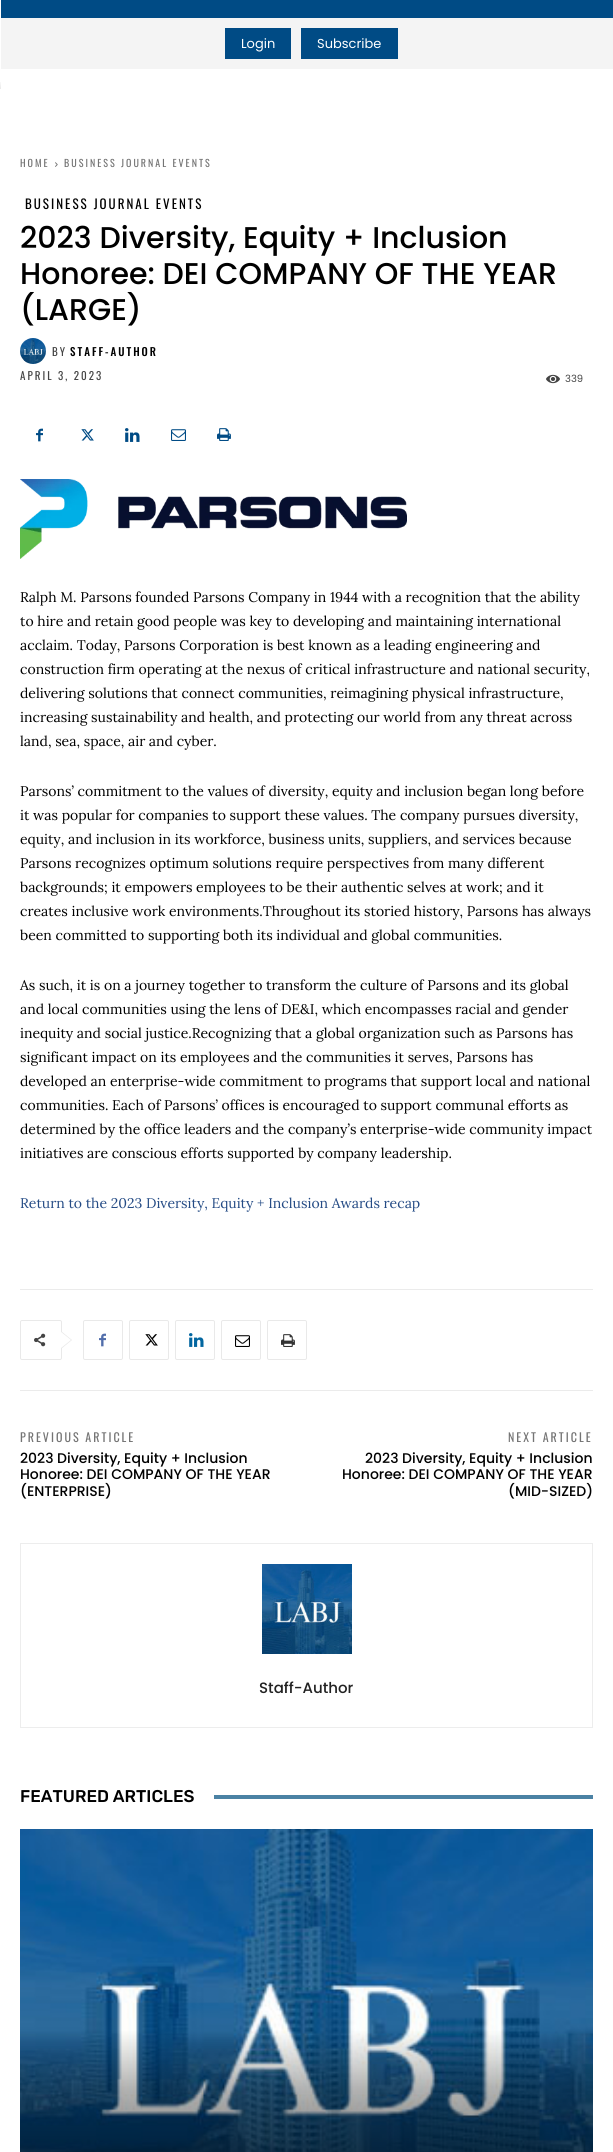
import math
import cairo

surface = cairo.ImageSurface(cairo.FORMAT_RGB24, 613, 2152)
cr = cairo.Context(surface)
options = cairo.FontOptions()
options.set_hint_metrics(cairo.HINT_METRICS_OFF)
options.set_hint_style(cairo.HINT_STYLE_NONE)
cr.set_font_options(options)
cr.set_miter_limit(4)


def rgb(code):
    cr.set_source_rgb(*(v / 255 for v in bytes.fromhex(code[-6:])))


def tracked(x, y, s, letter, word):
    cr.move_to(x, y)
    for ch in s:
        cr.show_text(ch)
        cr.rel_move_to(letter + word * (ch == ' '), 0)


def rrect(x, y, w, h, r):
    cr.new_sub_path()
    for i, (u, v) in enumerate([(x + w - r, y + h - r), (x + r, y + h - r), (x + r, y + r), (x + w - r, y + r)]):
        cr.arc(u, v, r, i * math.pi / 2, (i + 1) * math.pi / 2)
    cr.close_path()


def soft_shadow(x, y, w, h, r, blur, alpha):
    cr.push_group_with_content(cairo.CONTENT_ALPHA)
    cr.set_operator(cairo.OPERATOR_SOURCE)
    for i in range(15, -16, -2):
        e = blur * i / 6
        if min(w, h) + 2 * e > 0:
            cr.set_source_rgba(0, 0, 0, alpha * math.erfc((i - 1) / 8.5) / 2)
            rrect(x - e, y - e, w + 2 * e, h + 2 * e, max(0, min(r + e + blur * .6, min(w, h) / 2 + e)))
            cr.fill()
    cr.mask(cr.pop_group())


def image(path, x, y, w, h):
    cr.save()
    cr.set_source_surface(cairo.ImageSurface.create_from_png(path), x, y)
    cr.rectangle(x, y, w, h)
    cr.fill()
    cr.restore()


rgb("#ffffff")
cr.paint()
for x, y, w, h, color in [
    (1, 0, 612, 18, "#004b85"),
    (1, 18, 612, 51, "#f4f4f4"),
    (225, 28, 66, 31, "#004b85"),
    (301, 28, 97, 31, "#004b85"),
]:
    rgb(color)
    cr.rectangle(x, y, w, h)
    cr.fill()
cr.save()
cr.rectangle(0, 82, 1, 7)
cr.clip()
rgb("#000000")
soft_shadow(-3, 86, 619, 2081, 0, 5, 0.12)
cr.restore()
rgb("#ffffff")
cr.rectangle(1, 79, 612, 10)
cr.fill()
image("img/1.png", 55, 162, 3, 5)
image("img/2.png", 20, 338, 26, 26)
image("img/3.png", 546, 374, 14, 10)
image("img/4.png", 36, 428, 7, 14)
image("img/5.png", 81, 429, 13, 12)
image("img/6.png", 125, 428, 15, 14)
image("img/7.png", 171, 429, 15, 12)
image("img/8.png", 217, 428, 14, 13)
image("img/9.png", 20, 479, 387, 80)
rgb("#ebebeb")
cr.rectangle(20, 1289, 573, 1)
cr.fill()
rrect(20.5, 1320.5, 41, 39, 1.5)
rgb("#e9e9e9")
cr.set_line_width(1)
cr.stroke()
cr.new_path()
cr.move_to(61, 1349)
cr.line_to(61, 1331)
cr.line_to(72, 1340)
cr.close_path()
cr.fill()
image("img/10.png", 34, 1333, 12, 14)
rgb("#ffffff")
cr.new_path()
cr.move_to(61, 1348)
cr.line_to(61, 1332)
cr.line_to(71, 1340)
cr.close_path()
cr.fill()
rrect(83.5, 1320.5, 39, 39, 1.5)
rgb("#e9e9e9")
cr.stroke()
image("img/11.png", 99, 1333, 7, 14)
rrect(129.5, 1320.5, 39, 39, 1.5)
cr.stroke()
image("img/12.png", 145, 1334, 13, 12)
rrect(175.5, 1320.5, 39, 39, 1.5)
cr.stroke()
image("img/13.png", 189, 1333, 15, 14)
rrect(221.5, 1320.5, 39, 39, 1.5)
cr.stroke()
image("img/14.png", 235, 1335, 15, 12)
rrect(267.5, 1320.5, 39, 39, 1.5)
cr.stroke()
image("img/15.png", 281, 1334, 14, 13)
rgb("#ebebeb")
cr.rectangle(20, 1390, 573, 1)
cr.fill()
cr.rectangle(20.5, 1543.5, 572, 184)
rgb("#ededed")
cr.stroke()
image("img/16.png", 262, 1564, 90, 90)
rgb("#4b82a4")
cr.rectangle(214, 1795, 379, 4)
cr.fill()
image("img/17.png", 20, 1829, 573, 323)
cr.select_font_face("Poppins")
cr.set_font_size(13)
rgb("#ffffff")
cr.move_to(241, 48)
cr.show_text("Login")
cr.move_to(317, 48)
cr.show_text("Subscribe")
cr.select_font_face("Oswald")
cr.set_font_size(10)
rgb("#747474")
tracked(20, 167, "HOME", 2, 0)
tracked(64, 167, "BUSINESS JOURNAL EVENTS", 2, 0)
cr.set_font_size(13)
rgb("#000000")
tracked(25, 209, "BUSINESS JOURNAL EVENTS", 2, 0)
cr.select_font_face("Poppins Medium")
cr.set_font_size(30)
for x, y, s in [
    (20, 248, "2023 Diversity, Equity + Inclusion"),
    (20, 284, "Honoree: DEI COMPANY OF THE YEAR"),
    (20, 320, "(LARGE)"),
]:
    cr.move_to(x, y)
    cr.show_text(s)
cr.select_font_face("Oswald")
cr.set_font_size(11)
rgb("#444444")
tracked(52, 356, "BY", 2, 0)
cr.select_font_face("Oswald Medium")
rgb("#000000")
tracked(70, 356, "STAFF-AUTHOR", 2, 0)
cr.select_font_face("Oswald")
rgb("#444444")
tracked(20, 380, "APRIL 3, 2023", 2, 0)
cr.select_font_face("Poppins")
cr.set_font_size(10)
cr.move_to(565, 382)
cr.show_text("339")
cr.select_font_face("Lora")
cr.set_font_size(14)
rgb("#000000")
for x, y, s in [
    (20, 602, "Ralph M. Parsons founded Parsons Company in 1944 with a recognition that the ability"),
    (20, 626, "to hire and retain good people was key to developing and maintaining international"),
    (20, 650, "acclaim. Today, Parsons Corporation is best known as a leading engineering and"),
    (20, 674, "construction firm operating at the nexus of critical infrastructure and national security,"),
    (20, 698, "delivering solutions that connect communities, reimagining physical infrastructure,"),
    (20, 722, "increasing sustainability and health, and protecting our world from any threat across"),
    (20, 746, "land, sea, space, air and cyber."),
    (20, 796, "Parsons’ commitment to the values of diversity, equity and inclusion began long before"),
    (20, 820, "it was popular for companies to support these values. The company pursues diversity,"),
    (20, 844, "equity, and inclusion in its workforce, business units, suppliers, and services because"),
    (20, 868, "Parsons recognizes optimum solutions require perspectives from many different"),
    (20, 892, "backgrounds; it empowers employees to be their authentic selves at work; and it"),
    (20, 916, "creates inclusive work environments.Throughout its storied history, Parsons has always"),
    (20, 940, "been committed to supporting both its individual and global communities."),
    (20, 990, "As such, it is on a journey together to transform the culture of Parsons and its global"),
    (20, 1014, "and local communities using the lens of DE&I, which encompasses racial and gender"),
    (20, 1038, "inequity and social justice.Recognizing that a global organization such as Parsons has"),
    (20, 1062, "significant impact on its employees and the communities it serves, Parsons has"),
    (20, 1086, "developed an enterprise-wide commitment to programs that support local and national"),
    (20, 1110, "communities. Each of Parsons’ offices is encouraged to support communal efforts as"),
    (20, 1134, "determined by the office leaders and the company’s enterprise-wide community impact"),
    (20, 1158, "initiatives are conscious efforts supported by company leadership."),
]:
    cr.move_to(x, y)
    cr.show_text(s)
rgb("#244b85")
cr.move_to(20, 1208)
cr.show_text("Return to the 2023 Diversity, Equity + Inclusion Awards recap")
cr.select_font_face("Oswald")
cr.set_font_size(12)
rgb("#747474")
tracked(20, 1442, "PREVIOUS ARTICLE", 2, 0)
cr.select_font_face("Poppins Medium")
cr.set_font_size(14)
rgb("#000000")
for x, y, s in [
    (20, 1463, "2023 Diversity, Equity + Inclusion"),
    (20, 1479, "Honoree: DEI COMPANY OF THE YEAR"),
    (20, 1496, "(ENTERPRISE)"),
]:
    cr.move_to(x, y)
    cr.show_text(s)
cr.select_font_face("Oswald")
cr.set_font_size(12)
rgb("#747474")
tracked(508, 1442, "NEXT ARTICLE", 2, 0)
cr.select_font_face("Poppins Medium")
cr.set_font_size(14)
rgb("#000000")
for x, y, s in [
    (365, 1463, "2023 Diversity, Equity + Inclusion"),
    (342, 1479, "Honoree: DEI COMPANY OF THE YEAR"),
    (508, 1496, "(MID-SIZED)"),
]:
    cr.move_to(x, y)
    cr.show_text(s)
cr.set_font_size(15)
rgb("#222222")
cr.move_to(259, 1693)
cr.show_text("Staff-Author")
cr.select_font_face("Rubik Medium")
cr.set_font_size(17)
rgb("#000000")
cr.move_to(20, 1802)
cr.show_text("FEATURED ARTICLES")
surface.write_to_png("page.png")
